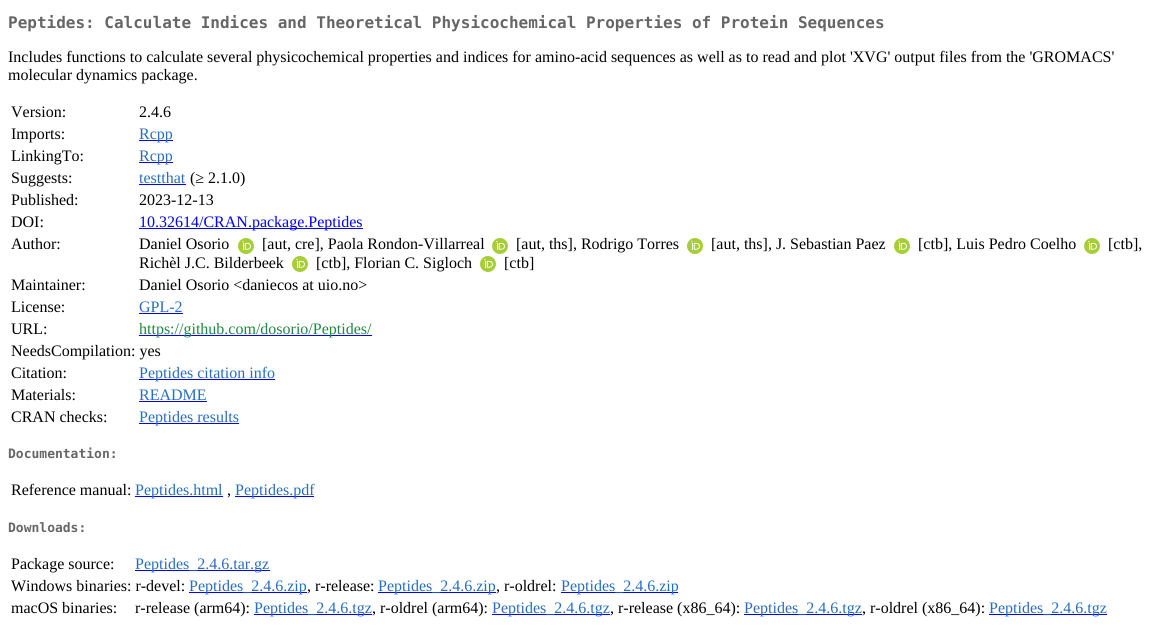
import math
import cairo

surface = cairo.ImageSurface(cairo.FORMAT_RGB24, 1155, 627)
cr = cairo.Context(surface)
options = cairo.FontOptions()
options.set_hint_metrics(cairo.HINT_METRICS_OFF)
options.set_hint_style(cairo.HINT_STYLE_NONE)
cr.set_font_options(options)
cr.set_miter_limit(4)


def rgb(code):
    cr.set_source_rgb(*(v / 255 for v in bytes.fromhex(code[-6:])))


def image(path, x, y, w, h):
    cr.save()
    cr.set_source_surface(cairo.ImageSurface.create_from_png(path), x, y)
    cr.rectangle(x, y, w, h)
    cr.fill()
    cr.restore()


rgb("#ffffff")
cr.paint()
for x, y, w, h, color in [
    (139, 140, 34, 1, "#0000ff"),
    (139, 162, 34, 1, "#0000ff"),
    (139, 184, 47, 1, "#0000ff"),
    (139, 228, 224, 1, "#0000ff"),
]:
    rgb(color)
    cr.rectangle(x, y, w, h)
    cr.fill()
image("img/1.png", 238, 238, 16, 16)
image("img/1.png", 492, 238, 16, 16)
image("img/1.png", 687, 238, 16, 16)
image("img/1.png", 894, 238, 16, 16)
image("img/1.png", 1084, 238, 16, 16)
image("img/1.png", 292, 256, 16, 16)
image("img/1.png", 480, 256, 16, 16)
for x, y, w, h, color in [
    (139, 313, 44, 1, "#0000ff"),
    (139, 335, 233, 1, "#0000ff"),
    (139, 379, 136, 1, "#0000ff"),
    (139, 401, 68, 1, "#0000ff"),
    (139, 423, 100, 1, "#0000ff"),
    (135, 496, 88, 1, "#0000ff"),
    (235, 496, 79, 1, "#0000ff"),
    (135, 570, 135, 1, "#0000ff"),
    (189, 592, 118, 1, "#0000ff"),
    (378, 592, 118, 1, "#0000ff"),
    (561, 592, 117, 1, "#0000ff"),
    (254, 614, 118, 1, "#0000ff"),
    (492, 614, 118, 1, "#0000ff"),
    (744, 614, 118, 1, "#0000ff"),
    (989, 614, 118, 1, "#0000ff"),
]:
    rgb(color)
    cr.rectangle(x, y, w, h)
    cr.fill()
cr.select_font_face("DejaVu Sans Mono", cairo.FONT_SLANT_NORMAL, cairo.FONT_WEIGHT_BOLD)
cr.set_font_size(16)
rgb("#666666")
cr.move_to(8, 28)
cr.show_text("Peptides: Calculate Indices and Theoretical Physicochemical Properties of Protein Sequences")
cr.select_font_face("Liberation Serif")
rgb("#000000")
for x, y, s in [
    (8, 62, "Includes functions to calculate several physicochemical properties and indices for amino-acid sequences as well as to read and plot 'XVG' output files from the 'GROMACS'"),
    (8, 80, "molecular dynamics package."),
    (11, 117, "Version:"),
    (139, 117, "2.4.6"),
    (11, 139, "Imports:"),
]:
    cr.move_to(x, y)
    cr.show_text(s)
rgb("#276dc3")
cr.move_to(139, 139)
cr.show_text("Rcpp")
rgb("#000000")
cr.move_to(11, 161)
cr.show_text("LinkingTo:")
rgb("#276dc3")
cr.move_to(139, 161)
cr.show_text("Rcpp")
rgb("#000000")
cr.move_to(11, 183)
cr.show_text("Suggests:")
rgb("#276dc3")
cr.move_to(139, 183)
cr.show_text("testthat")
rgb("#000000")
for x, y, s in [
    (190, 183, "(≥ 2.1.0)"),
    (11, 205, "Published:"),
    (139, 205, "2023-12-13"),
    (11, 227, "DOI:"),
]:
    cr.move_to(x, y)
    cr.show_text(s)
rgb("#0000ff")
cr.move_to(139, 227)
cr.show_text("10.32614/CRAN.package.Peptides")
rgb("#000000")
for x, y, s in [
    (11, 249, "Author:"),
    (139, 249, "Daniel Osorio"),
    (262, 249, "[aut, cre], Paola Rondon-Villarreal"),
    (516, 249, "[aut, ths], Rodrigo Torres"),
    (711, 249, "[aut, ths], J. Sebastian Paez"),
    (918, 249, "[ctb], Luis Pedro Coelho"),
    (1108, 249, "[ctb],"),
    (139, 268, "Richèl J.C. Bilderbeek"),
    (316, 268, "[ctb], Florian C. Sigloch"),
    (504, 268, "[ctb]"),
    (11, 290, "Maintainer:"),
    (139, 290, "Daniel Osorio <daniecos at uio.no>"),
    (11, 312, "License:"),
]:
    cr.move_to(x, y)
    cr.show_text(s)
rgb("#276dc3")
cr.move_to(139, 312)
cr.show_text("GPL-2")
rgb("#000000")
cr.move_to(11, 334)
cr.show_text("URL:")
rgb("#1f883d")
cr.move_to(139, 334)
cr.show_text("https://github.com/dosorio/Peptides/")
rgb("#000000")
cr.move_to(11, 356)
cr.show_text("NeedsCompilation: yes")
cr.move_to(11, 378)
cr.show_text("Citation:")
rgb("#276dc3")
cr.move_to(139, 378)
cr.show_text("Peptides citation info")
rgb("#000000")
cr.move_to(11, 400)
cr.show_text("Materials:")
rgb("#276dc3")
cr.move_to(139, 400)
cr.show_text("README")
rgb("#000000")
cr.move_to(11, 422)
cr.show_text("CRAN checks:")
rgb("#276dc3")
cr.move_to(139, 422)
cr.show_text("Peptides results")
cr.select_font_face("DejaVu Sans Mono", cairo.FONT_SLANT_NORMAL, cairo.FONT_WEIGHT_BOLD)
cr.set_font_size(13)
rgb("#666666")
cr.move_to(8, 458)
cr.show_text("Documentation:")
cr.select_font_face("Liberation Serif")
cr.set_font_size(16)
rgb("#000000")
cr.move_to(11, 495)
cr.show_text("Reference manual:")
rgb("#276dc3")
cr.move_to(135, 495)
cr.show_text("Peptides.html")
rgb("#000000")
cr.move_to(227, 495)
cr.show_text(",")
rgb("#276dc3")
cr.move_to(235, 495)
cr.show_text("Peptides.pdf")
cr.select_font_face("DejaVu Sans Mono", cairo.FONT_SLANT_NORMAL, cairo.FONT_WEIGHT_BOLD)
cr.set_font_size(13)
rgb("#666666")
cr.move_to(8, 532)
cr.show_text("Downloads:")
cr.select_font_face("Liberation Serif")
cr.set_font_size(16)
rgb("#000000")
cr.move_to(11, 569)
cr.show_text("Package source:")
rgb("#276dc3")
cr.move_to(135, 569)
cr.show_text("Peptides_2.4.6.tar.gz")
rgb("#000000")
cr.move_to(11, 591)
cr.show_text("Windows binaries: r-devel:")
rgb("#276dc3")
cr.move_to(189, 591)
cr.show_text("Peptides_2.4.6.zip")
rgb("#000000")
cr.move_to(307, 591)
cr.show_text(", r-release:")
rgb("#276dc3")
cr.move_to(378, 591)
cr.show_text("Peptides_2.4.6.zip")
rgb("#000000")
cr.move_to(496, 591)
cr.show_text(", r-oldrel:")
rgb("#276dc3")
cr.move_to(561, 591)
cr.show_text("Peptides_2.4.6.zip")
rgb("#000000")
cr.move_to(11, 613)
cr.show_text("macOS binaries:")
cr.move_to(135, 613)
cr.show_text("r-release (arm64):")
rgb("#276dc3")
cr.move_to(254, 613)
cr.show_text("Peptides_2.4.6.tgz")
rgb("#000000")
cr.move_to(372, 613)
cr.show_text(", r-oldrel (arm64):")
rgb("#276dc3")
cr.move_to(492, 613)
cr.show_text("Peptides_2.4.6.tgz")
rgb("#000000")
cr.move_to(610, 613)
cr.show_text(", r-release (x86_64):")
rgb("#276dc3")
cr.move_to(744, 613)
cr.show_text("Peptides_2.4.6.tgz")
rgb("#000000")
cr.move_to(862, 613)
cr.show_text(", r-oldrel (x86_64):")
rgb("#276dc3")
cr.move_to(989, 613)
cr.show_text("Peptides_2.4.6.tgz")
surface.write_to_png("page.png")
